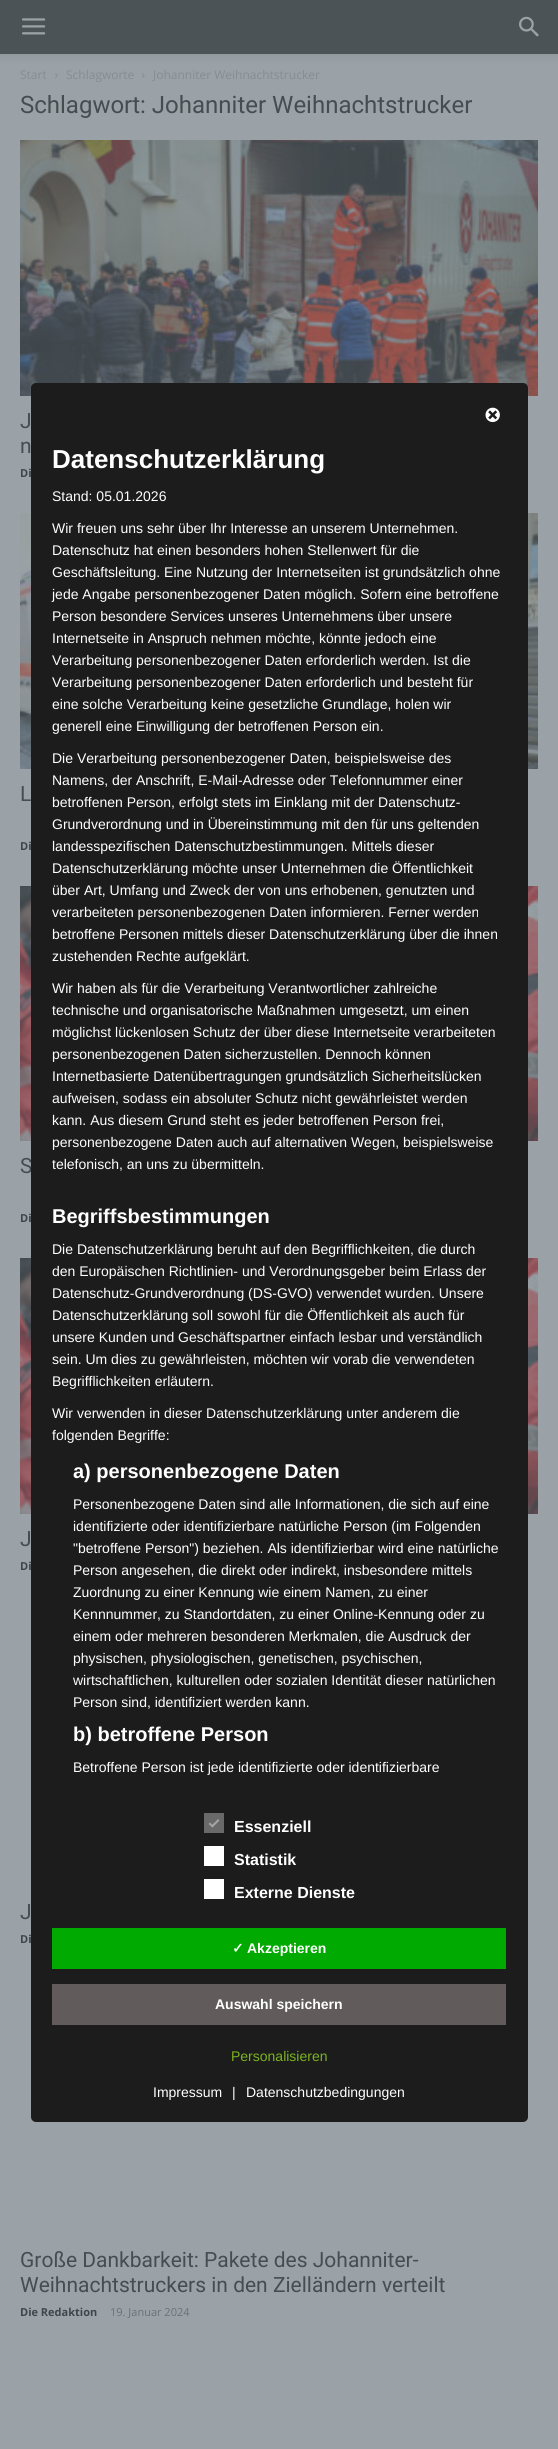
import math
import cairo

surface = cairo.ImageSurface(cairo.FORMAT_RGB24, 558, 2449)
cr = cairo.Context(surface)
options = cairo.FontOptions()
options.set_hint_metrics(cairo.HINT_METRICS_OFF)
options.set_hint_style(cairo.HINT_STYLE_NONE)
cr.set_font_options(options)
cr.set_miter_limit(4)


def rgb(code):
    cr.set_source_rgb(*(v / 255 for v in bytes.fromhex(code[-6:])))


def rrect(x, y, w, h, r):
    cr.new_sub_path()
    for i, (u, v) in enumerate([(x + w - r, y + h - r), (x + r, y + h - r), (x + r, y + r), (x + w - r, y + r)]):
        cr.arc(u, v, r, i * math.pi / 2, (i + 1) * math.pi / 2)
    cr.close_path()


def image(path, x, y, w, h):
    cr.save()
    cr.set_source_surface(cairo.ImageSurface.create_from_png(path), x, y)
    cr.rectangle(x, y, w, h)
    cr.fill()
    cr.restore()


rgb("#9ba2a7")
cr.paint()
rgb("#4b5357")
cr.rectangle(0, 0, 558, 54)
cr.fill()
image("img/1.png", 22, 18, 24, 17)
image("img/2.png", 519, 16, 20, 21)
image("img/3.png", 0, 54, 558, 9)
image("img/4.png", 55, 73, 3, 5)
image("img/4.png", 142, 73, 3, 5)
image("img/5.png", 20, 140, 518, 256)
image("img/6.png", 20, 513, 518, 256)
image("img/7.png", 20, 886, 518, 255)
image("img/8.png", 20, 1258, 518, 256)
cr.select_font_face("Open Sans")
cr.set_font_size(12)
rgb("#858d91")
for x, y, s in [
    (20, 79, "Start"),
    (66, 79, "Schlagworte"),
    (153, 79, "Johanniter Weihnachtstrucker"),
]:
    cr.move_to(x, y)
    cr.show_text(s)
cr.select_font_face("Roboto")
cr.set_font_size(24)
rgb("#454d51")
cr.move_to(20, 113)
cr.show_text("Schlagwort: Johanniter Weihnachtstrucker")
cr.set_font_size(21)
cr.move_to(20, 428)
cr.show_text("J")
cr.move_to(20, 453)
cr.show_text("n")
cr.select_font_face("Open Sans", cairo.FONT_SLANT_NORMAL, cairo.FONT_WEIGHT_BOLD)
cr.set_font_size(11)
rgb("#3f464b")
cr.move_to(20, 477)
cr.show_text("Di")
cr.select_font_face("Roboto")
cr.set_font_size(21)
rgb("#454d51")
cr.move_to(20, 801)
cr.show_text("L")
cr.select_font_face("Open Sans", cairo.FONT_SLANT_NORMAL, cairo.FONT_WEIGHT_BOLD)
cr.set_font_size(11)
rgb("#3f464b")
cr.move_to(20, 850)
cr.show_text("Di")
cr.select_font_face("Roboto")
cr.set_font_size(21)
rgb("#454d51")
cr.move_to(20, 1173)
cr.show_text("S")
cr.select_font_face("Open Sans", cairo.FONT_SLANT_NORMAL, cairo.FONT_WEIGHT_BOLD)
cr.set_font_size(11)
rgb("#3f464b")
cr.move_to(20, 1222)
cr.show_text("Di")
cr.select_font_face("Roboto")
cr.set_font_size(21)
rgb("#454d51")
cr.move_to(20, 1546)
cr.show_text("J")
cr.select_font_face("Open Sans", cairo.FONT_SLANT_NORMAL, cairo.FONT_WEIGHT_BOLD)
cr.set_font_size(11)
rgb("#3f464b")
cr.move_to(20, 1570)
cr.show_text("Di")
cr.select_font_face("Roboto")
cr.set_font_size(21)
rgb("#454d51")
cr.move_to(20, 1919)
cr.show_text("J")
cr.select_font_face("Open Sans", cairo.FONT_SLANT_NORMAL, cairo.FONT_WEIGHT_BOLD)
cr.set_font_size(11)
rgb("#3f464b")
cr.move_to(20, 1943)
cr.show_text("Di")
cr.select_font_face("Roboto")
cr.set_font_size(21)
rgb("#454d51")
cr.move_to(20, 2267)
cr.show_text("Große Dankbarkeit: Pakete des Johanniter-")
cr.move_to(20, 2292)
cr.show_text("Weihnachtstruckers in den Zielländern verteilt")
cr.select_font_face("Open Sans", cairo.FONT_SLANT_NORMAL, cairo.FONT_WEIGHT_BOLD)
cr.set_font_size(11)
rgb("#3f464b")
cr.move_to(20, 2316)
cr.show_text("Die Redaktion")
cr.select_font_face("Open Sans")
rgb("#697175")
cr.move_to(110, 2316)
cr.show_text("19. Januar 2024")
rgb("#1d1c1c")
rrect(31, 383, 497, 1739, 5)
cr.fill()
image("img/9.png", 485, 407, 15, 16)
cr.select_font_face("Liberation Sans", cairo.FONT_SLANT_NORMAL, cairo.FONT_WEIGHT_BOLD)
cr.set_font_size(26)
rgb("#ffffff")
cr.move_to(52, 468)
cr.show_text("Datenschutzerklärung")
cr.select_font_face("Liberation Sans")
cr.set_font_size(14)
for x, y, s in [
    (52, 501, "Stand: 05.01.2026"),
    (52, 533, "Wir freuen uns sehr über Ihr Interesse an unserem Unternehmen."),
    (52, 555, "Datenschutz hat einen besonders hohen Stellenwert für die"),
    (52, 577, "Geschäftsleitung. Eine Nutzung der Internetseiten ist grundsätzlich ohne"),
    (52, 599, "jede Angabe personenbezogener Daten möglich. Sofern eine betroffene"),
    (52, 621, "Person besondere Services unseres Unternehmens über unsere"),
    (52, 643, "Internetseite in Anspruch nehmen möchte, könnte jedoch eine"),
    (52, 665, "Verarbeitung personenbezogener Daten erforderlich werden. Ist die"),
    (52, 687, "Verarbeitung personenbezogener Daten erforderlich und besteht für"),
    (52, 709, "eine solche Verarbeitung keine gesetzliche Grundlage, holen wir"),
    (52, 731, "generell eine Einwilligung der betroffenen Person ein."),
    (52, 763, "Die Verarbeitung personenbezogener Daten, beispielsweise des"),
    (52, 785, "Namens, der Anschrift, E-Mail-Adresse oder Telefonnummer einer"),
    (52, 807, "betroffenen Person, erfolgt stets im Einklang mit der Datenschutz-"),
    (52, 829, "Grundverordnung und in Übereinstimmung mit den für uns geltenden"),
    (52, 851, "landesspezifischen Datenschutzbestimmungen. Mittels dieser"),
    (52, 873, "Datenschutzerklärung möchte unser Unternehmen die Öffentlichkeit"),
    (52, 895, "über Art, Umfang und Zweck der von uns erhobenen, genutzten und"),
    (52, 917, "verarbeiteten personenbezogenen Daten informieren. Ferner werden"),
    (52, 939, "betroffene Personen mittels dieser Datenschutzerklärung über die ihnen"),
    (52, 961, "zustehenden Rechte aufgeklärt."),
    (52, 993, "Wir haben als für die Verarbeitung Verantwortlicher zahlreiche"),
    (52, 1015, "technische und organisatorische Maßnahmen umgesetzt, um einen"),
    (52, 1037, "möglichst lückenlosen Schutz der über diese Internetseite verarbeiteten"),
    (52, 1059, "personenbezogenen Daten sicherzustellen. Dennoch können"),
    (52, 1081, "Internetbasierte Datenübertragungen grundsätzlich Sicherheitslücken"),
    (52, 1103, "aufweisen, sodass ein absoluter Schutz nicht gewährleistet werden"),
    (52, 1125, "kann. Aus diesem Grund steht es jeder betroffenen Person frei,"),
    (52, 1147, "personenbezogene Daten auch auf alternativen Wegen, beispielsweise"),
    (52, 1169, "telefonisch, an uns zu übermitteln."),
]:
    cr.move_to(x, y)
    cr.show_text(s)
cr.select_font_face("Liberation Sans", cairo.FONT_SLANT_NORMAL, cairo.FONT_WEIGHT_BOLD)
cr.set_font_size(20)
cr.move_to(52, 1223)
cr.show_text("Begriffsbestimmungen")
cr.select_font_face("Liberation Sans")
cr.set_font_size(14)
for x, y, s in [
    (52, 1254, "Die Datenschutzerklärung beruht auf den Begrifflichkeiten, die durch"),
    (52, 1276, "den Europäischen Richtlinien- und Verordnungsgeber beim Erlass der"),
    (52, 1298, "Datenschutz-Grundverordnung (DS-GVO) verwendet wurden. Unsere"),
    (52, 1320, "Datenschutzerklärung soll sowohl für die Öffentlichkeit als auch für"),
    (52, 1342, "unsere Kunden und Geschäftspartner einfach lesbar und verständlich"),
    (52, 1364, "sein. Um dies zu gewährleisten, möchten wir vorab die verwendeten"),
    (52, 1386, "Begrifflichkeiten erläutern."),
    (52, 1418, "Wir verwenden in dieser Datenschutzerklärung unter anderem die"),
    (52, 1440, "folgenden Begriffe:"),
]:
    cr.move_to(x, y)
    cr.show_text(s)
cr.select_font_face("Liberation Sans", cairo.FONT_SLANT_NORMAL, cairo.FONT_WEIGHT_BOLD)
cr.set_font_size(20)
cr.move_to(73, 1478)
cr.show_text("a) personenbezogene Daten")
cr.select_font_face("Liberation Sans")
cr.set_font_size(14)
for x, y, s in [
    (73, 1509, "Personenbezogene Daten sind alle Informationen, die sich auf eine"),
    (73, 1531, "identifizierte oder identifizierbare natürliche Person (im Folgenden"),
    (73, 1553, "\"betroffene Person\") beziehen. Als identifizierbar wird eine natürliche"),
    (73, 1575, "Person angesehen, die direkt oder indirekt, insbesondere mittels"),
    (73, 1597, "Zuordnung zu einer Kennung wie einem Namen, zu einer"),
    (73, 1619, "Kennnummer, zu Standortdaten, zu einer Online-Kennung oder zu"),
    (73, 1641, "einem oder mehreren besonderen Merkmalen, die Ausdruck der"),
    (73, 1663, "physischen, physiologischen, genetischen, psychischen,"),
    (73, 1685, "wirtschaftlichen, kulturellen oder sozialen Identität dieser natürlichen"),
    (73, 1707, "Person sind, identifiziert werden kann."),
]:
    cr.move_to(x, y)
    cr.show_text(s)
cr.select_font_face("Liberation Sans", cairo.FONT_SLANT_NORMAL, cairo.FONT_WEIGHT_BOLD)
cr.set_font_size(20)
cr.move_to(73, 1741)
cr.show_text("b) betroffene Person")
cr.select_font_face("Liberation Sans")
cr.set_font_size(14)
cr.move_to(73, 1772)
cr.show_text("Betroffene Person ist jede identifizierte oder identifizierbare")
rgb("#696969")
cr.rectangle(204, 1813, 20, 20)
cr.fill()
rgb("#a5a4a4")
cr.new_path()
cr.move_to(218, 1819)
cr.line_to(219.5, 1820.5)
cr.line_to(212.5, 1827.5)
cr.line_to(211, 1826)
cr.close_path()
cr.fill()
cr.new_path()
cr.move_to(210, 1822.5)
cr.line_to(213.5, 1826)
cr.line_to(212.5, 1827.5)
cr.line_to(208.5, 1824)
cr.close_path()
cr.fill()
cr.select_font_face("Liberation Sans", cairo.FONT_SLANT_NORMAL, cairo.FONT_WEIGHT_BOLD)
cr.set_font_size(16)
rgb("#ffffff")
cr.move_to(234, 1832)
cr.show_text("Essenziell")
cr.rectangle(204, 1846, 20, 20)
cr.fill()
cr.move_to(234, 1865)
cr.show_text("Statistik")
cr.rectangle(204, 1879, 20, 20)
cr.fill()
cr.move_to(234, 1898)
cr.show_text("Externe Dienste")
rgb("#00aa00")
cr.rectangle(52, 1928, 454, 41)
cr.fill()
cr.select_font_face("DejaVu Sans", cairo.FONT_SLANT_NORMAL, cairo.FONT_WEIGHT_BOLD)
cr.set_font_size(14)
rgb("#ffffff")
cr.move_to(232, 1953)
cr.show_text("✓")
cr.select_font_face("Liberation Sans", cairo.FONT_SLANT_NORMAL, cairo.FONT_WEIGHT_BOLD)
cr.move_to(247, 1953)
cr.show_text("Akzeptieren")
rgb("#615b5b")
cr.rectangle(52, 1984, 454, 41)
cr.fill()
rgb("#ffffff")
cr.move_to(215, 2009)
cr.show_text("Auswahl speichern")
cr.select_font_face("Liberation Sans")
rgb("#79b51f")
cr.move_to(231, 2061)
cr.show_text("Personalisieren")
rgb("#ffffff")
for x, y, s in [
    (153, 2097, "Impressum"),
    (232, 2097, "|"),
    (246, 2097, "Datenschutzbedingungen"),
]:
    cr.move_to(x, y)
    cr.show_text(s)
surface.write_to_png("page.png")
